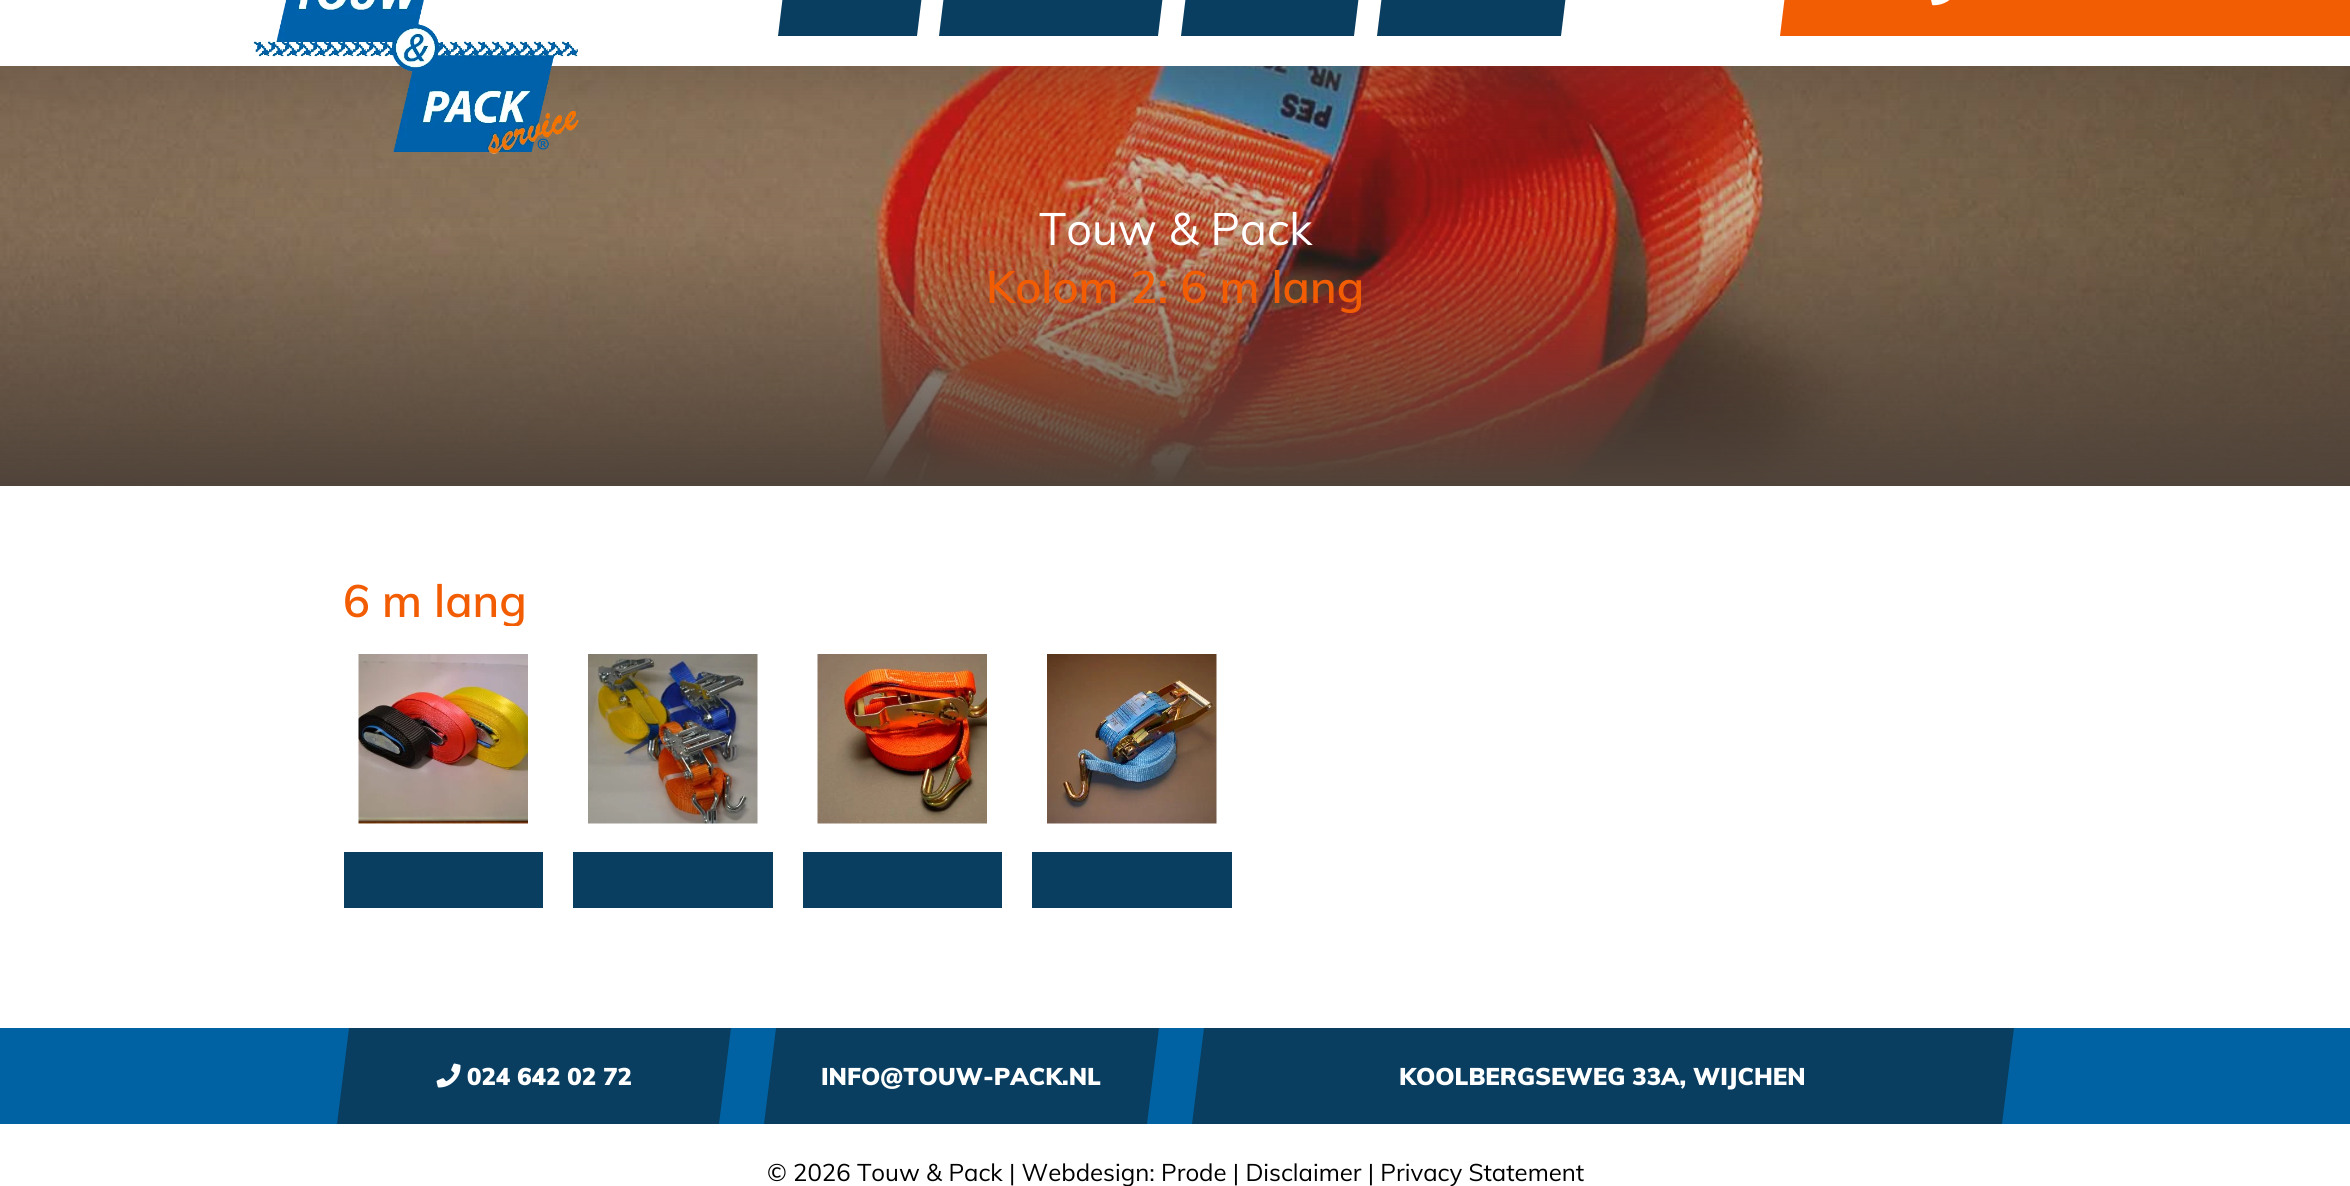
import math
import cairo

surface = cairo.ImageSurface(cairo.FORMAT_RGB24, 2350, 1186)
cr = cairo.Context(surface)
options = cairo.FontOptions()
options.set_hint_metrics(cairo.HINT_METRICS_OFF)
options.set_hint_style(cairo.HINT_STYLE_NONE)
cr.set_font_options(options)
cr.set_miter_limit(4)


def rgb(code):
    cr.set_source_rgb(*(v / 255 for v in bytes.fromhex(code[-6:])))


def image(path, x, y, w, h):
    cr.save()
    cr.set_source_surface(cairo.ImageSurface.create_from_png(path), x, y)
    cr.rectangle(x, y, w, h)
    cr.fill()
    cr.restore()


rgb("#ffffff")
cr.paint()
image("img/3.png", 0, 66, 2350, 420)
image("img/1.png", 253, 0, 326, 154)
rgb("#093e61")
cr.new_path()
cr.move_to(789, -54)
cr.line_to(928, -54)
cr.line_to(917, 36)
cr.line_to(778, 36)
cr.close_path()
cr.fill()
cr.new_path()
cr.move_to(950, -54)
cr.line_to(1169, -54)
cr.line_to(1158, 36)
cr.line_to(939, 36)
cr.close_path()
cr.fill()
cr.new_path()
cr.move_to(1192, -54)
cr.line_to(1365, -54)
cr.line_to(1354, 36)
cr.line_to(1181, 36)
cr.close_path()
cr.fill()
cr.new_path()
cr.move_to(1388, -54)
cr.line_to(1572, -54)
cr.line_to(1561, 36)
cr.line_to(1377, 36)
cr.close_path()
cr.fill()
rgb("#f25d04")
cr.new_path()
cr.move_to(1791, -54)
cr.line_to(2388, -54)
cr.line_to(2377, 36)
cr.line_to(1780, 36)
cr.close_path()
cr.fill()
image("img/2.png", 1931, 0, 19, 6)
image("img/4.png", 358, 654, 170, 170)
rgb("#093e61")
cr.rectangle(344, 852, 199, 56)
cr.fill()
image("img/5.png", 588, 654, 170, 170)
cr.rectangle(573, 852, 200, 56)
cr.fill()
image("img/6.png", 817, 654, 170, 170)
cr.rectangle(803, 852, 199, 56)
cr.fill()
image("img/7.png", 1047, 654, 170, 170)
cr.rectangle(1032, 852, 200, 56)
cr.fill()
rgb("#0062a3")
cr.rectangle(0, 1028, 2350, 96)
cr.fill()
rgb("#093e61")
cr.new_path()
cr.move_to(349, 1028)
cr.line_to(731, 1028)
cr.line_to(719, 1124)
cr.line_to(337, 1124)
cr.close_path()
cr.fill()
image("img/8.png", 436, 1063, 25, 25)
cr.new_path()
cr.move_to(776, 1028)
cr.line_to(1159, 1028)
cr.line_to(1147, 1124)
cr.line_to(764, 1124)
cr.close_path()
cr.fill()
cr.new_path()
cr.move_to(1204, 1028)
cr.line_to(2014, 1028)
cr.line_to(2002, 1124)
cr.line_to(1192, 1124)
cr.close_path()
cr.fill()
cr.select_font_face("Muli")
cr.set_font_size(45)
rgb("#ffffff")
cr.move_to(1039, 245)
cr.show_text("Touw & Pack")
cr.select_font_face("Muli SemiBold")
rgb("#f25d04")
cr.move_to(986, 303)
cr.show_text("Kolom 2: 6 m lang")
cr.move_to(343, 617)
cr.show_text("6 m lang")
rgb("#ffffff")
cr.rectangle(506, 626, 12, 2)
cr.fill()
cr.select_font_face("Muli Black")
cr.set_font_size(24)
for x, y, s in [
    (467, 1085, "024 642 02 72"),
    (821, 1085, "INFO@TOUW-PACK.NL"),
    (1399, 1085, "KOOLBERGSEWEG 33A, WIJCHEN"),
]:
    cr.move_to(x, y)
    cr.show_text(s)
cr.select_font_face("Muli")
rgb("#000000")
cr.move_to(767, 1181)
cr.show_text("© 2026 Touw & Pack | Webdesign: Prode | Disclaimer | Privacy Statement")
surface.write_to_png("page.png")
